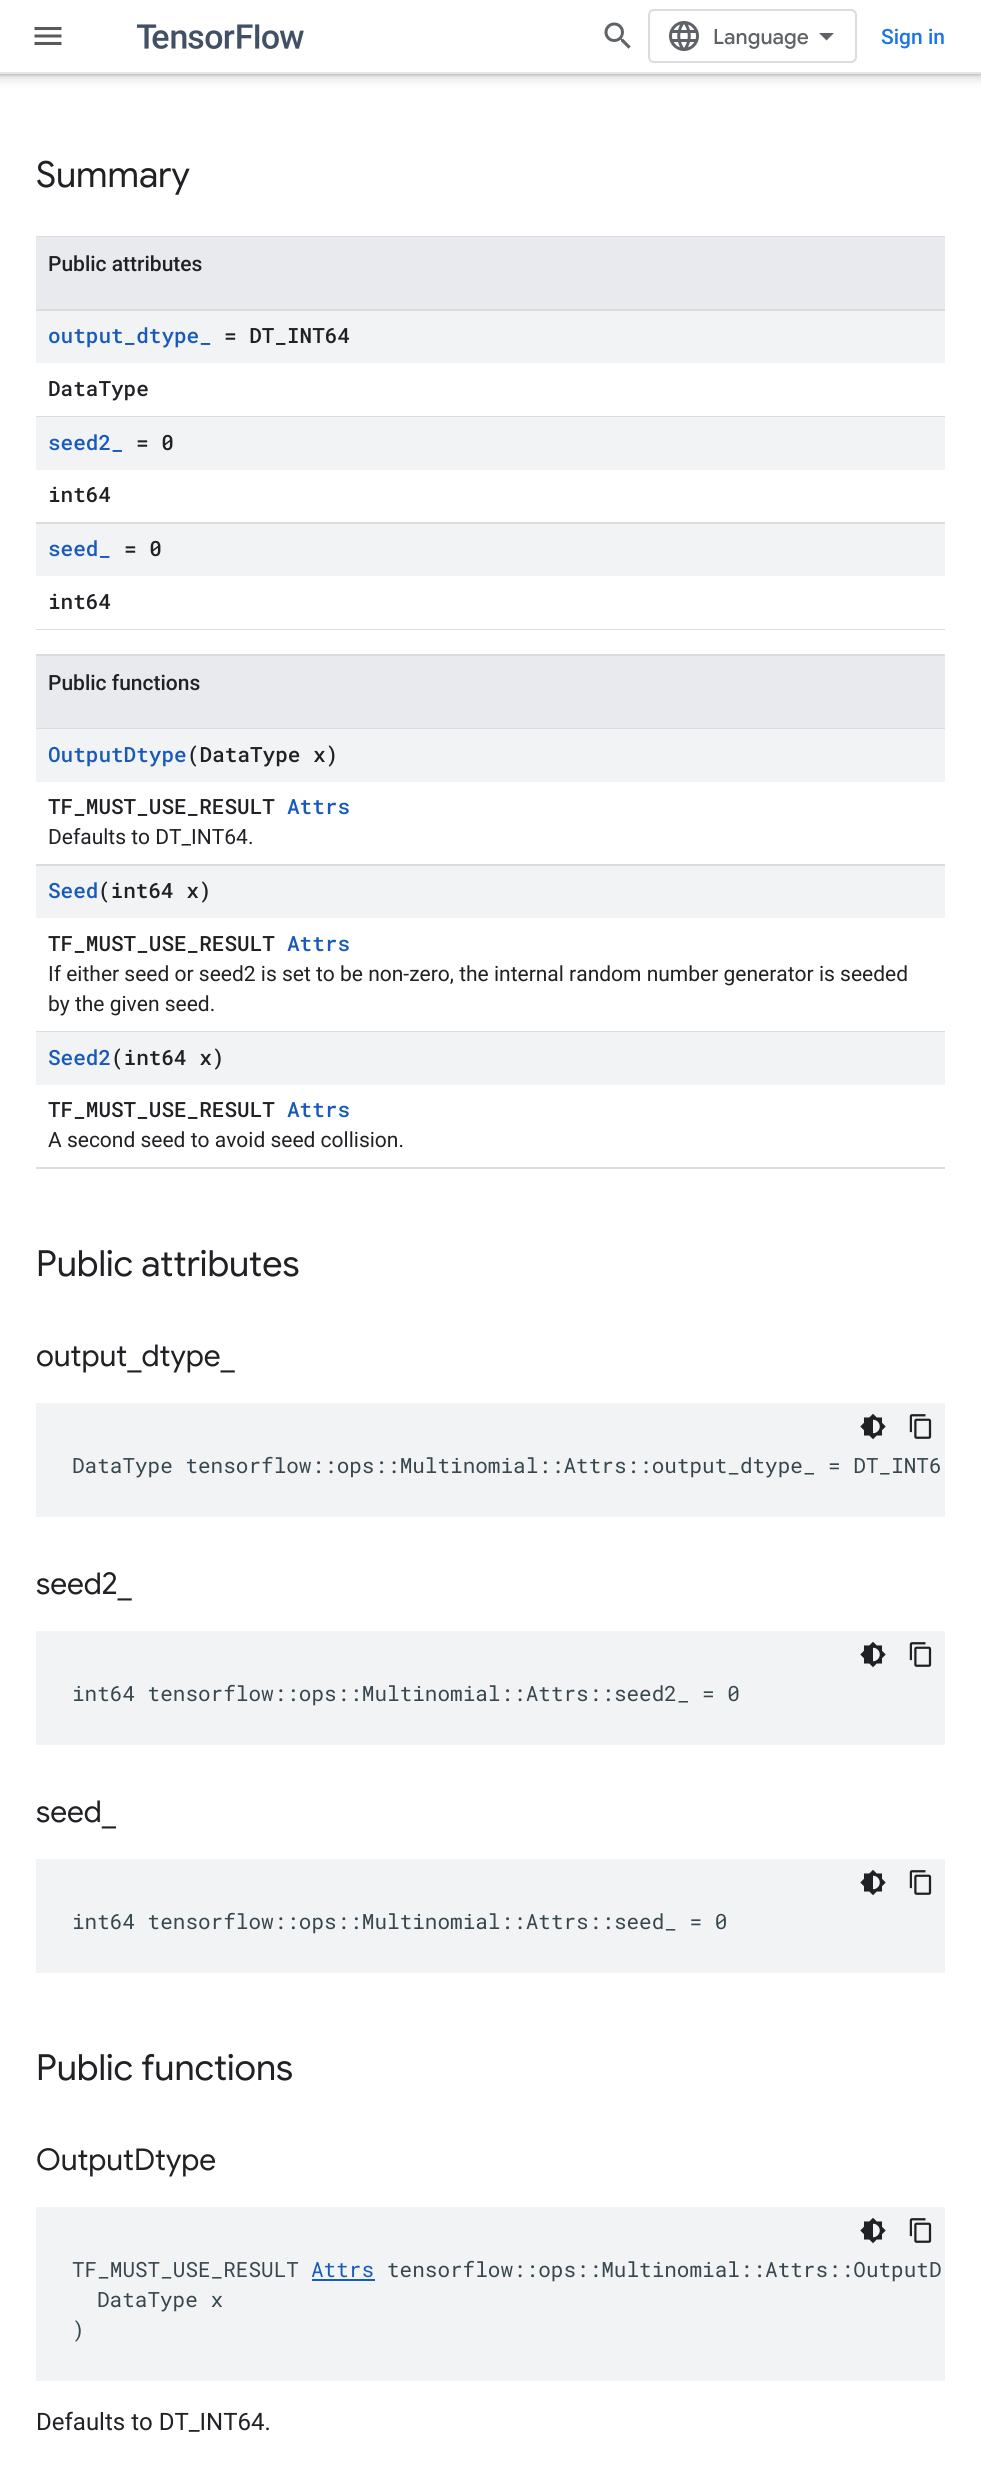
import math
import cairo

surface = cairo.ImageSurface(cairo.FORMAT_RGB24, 981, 2484)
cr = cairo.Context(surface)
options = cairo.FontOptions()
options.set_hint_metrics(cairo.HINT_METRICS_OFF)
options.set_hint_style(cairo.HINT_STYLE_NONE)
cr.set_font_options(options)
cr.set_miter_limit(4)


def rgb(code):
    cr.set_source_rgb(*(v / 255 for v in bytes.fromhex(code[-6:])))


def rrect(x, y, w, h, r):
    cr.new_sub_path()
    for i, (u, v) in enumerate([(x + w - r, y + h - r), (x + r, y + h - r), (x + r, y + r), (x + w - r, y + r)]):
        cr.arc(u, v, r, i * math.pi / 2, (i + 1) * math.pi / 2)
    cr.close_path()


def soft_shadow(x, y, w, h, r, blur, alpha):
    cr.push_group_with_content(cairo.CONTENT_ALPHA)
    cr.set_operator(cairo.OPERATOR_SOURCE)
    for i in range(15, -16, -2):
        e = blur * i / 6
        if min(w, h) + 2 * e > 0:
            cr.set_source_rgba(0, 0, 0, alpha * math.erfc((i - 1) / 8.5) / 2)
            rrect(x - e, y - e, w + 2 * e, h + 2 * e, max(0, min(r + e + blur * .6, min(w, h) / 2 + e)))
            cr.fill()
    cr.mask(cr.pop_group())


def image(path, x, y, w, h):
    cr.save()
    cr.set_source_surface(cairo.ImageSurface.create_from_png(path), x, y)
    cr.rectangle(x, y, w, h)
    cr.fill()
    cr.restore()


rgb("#ffffff")
cr.paint()
rgb("#3c4043")
soft_shadow(-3, -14, 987, 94, 0, 4.5, 0.15)
soft_shadow(0, -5, 981, 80, 0, 1.5, 0.3)
rgb("#ffffff")
cr.rectangle(0, 0, 981, 72)
cr.fill()
rgb("#e6e6e6")
cr.rectangle(0, 72, 981, 2)
cr.fill()
image("img/1.png", 34, 27, 28, 18)
image("img/2.png", 136, 24, 168, 25)
image("img/3.png", 604, 22, 27, 27)
rrect(649, 10, 207, 52, 5)
rgb("#dadce0")
cr.stroke()
image("img/4.png", 669, 21, 30, 30)
rgb("#5f6368")
cr.new_path()
cr.move_to(826.5, 40.5)
cr.line_to(819, 33)
cr.line_to(834, 33)
cr.close_path()
cr.fill()
for x, y, w, h, color in [
    (36, 236, 909, 1, "#dadce0"),
    (36, 309, 909, 2, "#dadce0"),
    (36, 237, 909, 72, "#e8eaed"),
    (36, 416, 909, 1, "#dadce0"),
    (36, 311, 909, 52, "#f1f3f4"),
    (36, 522, 909, 2, "#dadce0"),
    (36, 417, 909, 53, "#f1f3f4"),
    (36, 629, 909, 1, "#dadce0"),
    (36, 524, 909, 52, "#f1f3f4"),
    (36, 654, 909, 2, "#dadce0"),
    (36, 728, 909, 1, "#dadce0"),
    (36, 656, 909, 72, "#e8eaed"),
    (36, 864, 909, 2, "#dadce0"),
    (36, 729, 909, 53, "#f1f3f4"),
    (36, 1031, 909, 1, "#dadce0"),
    (36, 866, 909, 52, "#f1f3f4"),
    (36, 1167, 909, 2, "#dadce0"),
    (36, 1032, 909, 53, "#f1f3f4"),
    (36, 1403, 909, 114, "#f1f3f4"),
]:
    rgb(color)
    cr.rectangle(x, y, w, h)
    cr.fill()
image("img/5.png", 860, 1413, 26, 27)
image("img/6.png", 909, 1414, 23, 25)
cr.rectangle(36, 1631, 909, 114)
cr.fill()
image("img/5.png", 860, 1641, 26, 27)
image("img/6.png", 909, 1642, 23, 25)
cr.rectangle(36, 1859, 909, 114)
cr.fill()
image("img/5.png", 860, 1869, 26, 27)
image("img/6.png", 909, 1870, 23, 25)
cr.rectangle(36, 2207, 909, 174)
cr.fill()
image("img/5.png", 860, 2217, 26, 27)
image("img/6.png", 909, 2218, 23, 25)
rgb("#185abc")
cr.rectangle(312, 2279, 63, 2)
cr.fill()
cr.select_font_face("Google Sans Medium")
cr.set_font_size(21)
rgb("#5f6368")
cr.move_to(713, 44)
cr.show_text("Language")
cr.select_font_face("Roboto Medium")
rgb("#1a73e8")
cr.move_to(881, 44)
cr.show_text("Sign in")
cr.select_font_face("Google Sans")
cr.set_font_size(36)
rgb("#202124")
cr.move_to(36, 187)
cr.show_text("Summary")
cr.select_font_face("Roboto Medium")
cr.set_font_size(21)
cr.move_to(48, 271)
cr.show_text("Public attributes")
cr.select_font_face("Roboto Mono Medium")
rgb("#185abc")
cr.move_to(48, 343)
cr.show_text("output_dtype_")
rgb("#202124")
cr.move_to(224, 343)
cr.show_text("= DT_INT64")
cr.move_to(48, 396)
cr.show_text("DataType")
rgb("#185abc")
cr.move_to(48, 450)
cr.show_text("seed2_")
rgb("#202124")
cr.move_to(136, 450)
cr.show_text("= 0")
cr.move_to(48, 502)
cr.show_text("int64")
rgb("#185abc")
cr.move_to(48, 556)
cr.show_text("seed_")
rgb("#202124")
cr.move_to(124, 556)
cr.show_text("= 0")
cr.move_to(48, 609)
cr.show_text("int64")
cr.select_font_face("Roboto Medium")
cr.move_to(48, 690)
cr.show_text("Public functions")
cr.select_font_face("Roboto Mono Medium")
rgb("#185abc")
cr.move_to(48, 762)
cr.show_text("OutputDtype")
rgb("#202124")
cr.move_to(187, 762)
cr.show_text("(DataType x)")
cr.move_to(48, 814)
cr.show_text("TF_MUST_USE_RESULT")
rgb("#185abc")
cr.move_to(287, 814)
cr.show_text("Attrs")
cr.select_font_face("Roboto")
rgb("#202124")
cr.move_to(48, 844)
cr.show_text("Defaults to DT_INT64.")
cr.select_font_face("Roboto Mono Medium")
rgb("#185abc")
cr.move_to(48, 898)
cr.show_text("Seed")
rgb("#202124")
cr.move_to(98, 898)
cr.show_text("(int64 x)")
cr.move_to(48, 951)
cr.show_text("TF_MUST_USE_RESULT")
rgb("#185abc")
cr.move_to(287, 951)
cr.show_text("Attrs")
cr.select_font_face("Roboto")
rgb("#202124")
cr.move_to(48, 981)
cr.show_text("If either seed or seed2 is set to be non-zero, the internal random number generator is seeded")
cr.move_to(48, 1011)
cr.show_text("by the given seed.")
cr.select_font_face("Roboto Mono Medium")
rgb("#185abc")
cr.move_to(48, 1065)
cr.show_text("Seed2")
rgb("#202124")
cr.move_to(111, 1065)
cr.show_text("(int64 x)")
cr.move_to(48, 1117)
cr.show_text("TF_MUST_USE_RESULT")
rgb("#185abc")
cr.move_to(287, 1117)
cr.show_text("Attrs")
cr.select_font_face("Roboto")
rgb("#202124")
cr.move_to(48, 1147)
cr.show_text("A second seed to avoid seed collision.")
cr.select_font_face("Google Sans")
cr.set_font_size(36)
cr.move_to(36, 1276)
cr.show_text("Public attributes")
cr.set_font_size(30)
cr.move_to(36, 1366)
cr.show_text("output_dtype_")
cr.select_font_face("Roboto Mono")
cr.set_font_size(21)
rgb("#37474f")
cr.move_to(72, 1473)
cr.show_text("DataType tensorflow::ops::Multinomial::Attrs::output_dtype_ = DT_INT6")
cr.select_font_face("Google Sans")
cr.set_font_size(30)
rgb("#202124")
cr.move_to(36, 1594)
cr.show_text("seed2_")
cr.select_font_face("Roboto Mono")
cr.set_font_size(21)
rgb("#37474f")
cr.move_to(72, 1701)
cr.show_text("int64 tensorflow::ops::Multinomial::Attrs::seed2_ = 0")
cr.select_font_face("Google Sans")
cr.set_font_size(30)
rgb("#202124")
cr.move_to(36, 1822)
cr.show_text("seed_")
cr.select_font_face("Roboto Mono")
cr.set_font_size(21)
rgb("#37474f")
cr.move_to(72, 1929)
cr.show_text("int64 tensorflow::ops::Multinomial::Attrs::seed_ = 0")
cr.select_font_face("Google Sans")
cr.set_font_size(36)
rgb("#202124")
cr.move_to(36, 2080)
cr.show_text("Public functions")
cr.set_font_size(30)
cr.move_to(36, 2170)
cr.show_text("OutputDtype")
cr.select_font_face("Roboto Mono")
cr.set_font_size(21)
rgb("#37474f")
cr.move_to(72, 2277)
cr.show_text("TF_MUST_USE_RESULT")
rgb("#185abc")
cr.move_to(311, 2277)
cr.show_text("Attrs")
rgb("#37474f")
for x, y, s in [
    (387, 2277, "tensorflow::ops::Multinomial::Attrs::OutputD"),
    (97, 2307, "DataType x"),
    (72, 2337, ")"),
]:
    cr.move_to(x, y)
    cr.show_text(s)
cr.select_font_face("Roboto")
cr.set_font_size(24)
rgb("#202124")
cr.move_to(36, 2430)
cr.show_text("Defaults to DT_INT64.")
surface.write_to_png("page.png")
